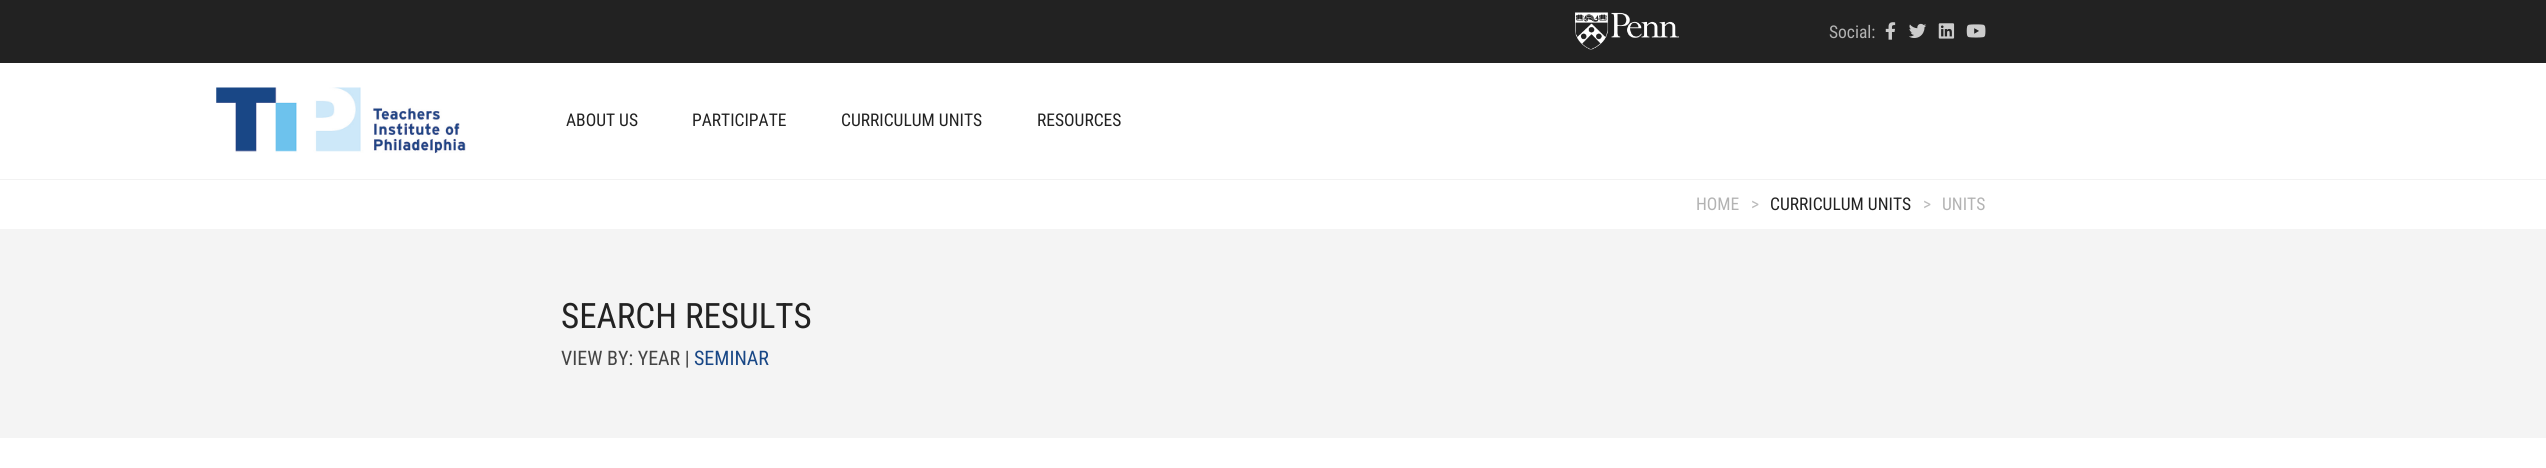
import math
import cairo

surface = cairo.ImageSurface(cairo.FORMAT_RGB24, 2546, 468)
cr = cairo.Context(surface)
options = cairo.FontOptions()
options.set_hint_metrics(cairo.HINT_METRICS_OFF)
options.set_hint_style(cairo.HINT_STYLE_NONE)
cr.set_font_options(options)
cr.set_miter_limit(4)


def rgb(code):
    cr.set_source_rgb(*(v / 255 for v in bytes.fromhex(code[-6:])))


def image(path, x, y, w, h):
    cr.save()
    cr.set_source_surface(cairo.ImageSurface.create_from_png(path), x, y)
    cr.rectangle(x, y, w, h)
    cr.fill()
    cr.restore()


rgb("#ffffff")
cr.paint()
rgb("#f2f2f2")
cr.rectangle(0, 179, 2546, 1)
cr.fill()
rgb("#222222")
cr.rectangle(0, 0, 2546, 63)
cr.fill()
image("img/1.png", 1575, 12, 104, 38)
image("img/2.png", 1885, 22, 11, 18)
image("img/3.png", 1909, 23, 18, 15)
image("img/4.png", 1938, 23, 17, 16)
image("img/5.png", 1966, 24, 20, 14)
image("img/6.png", 216, 87, 250, 67)
rgb("#f4f4f4")
cr.rectangle(0, 229, 2546, 209)
cr.fill()
cr.select_font_face("Roboto Condensed")
cr.set_font_size(17.5)
rgb("#b3b3b3")
cr.move_to(1829, 38)
cr.show_text("Social:")
rgb("#222222")
for x, y, s in [
    (566, 126, "ABOUT US"),
    (692, 126, "PARTICIPATE"),
    (841, 126, "CURRICULUM UNITS"),
    (1037, 126, "RESOURCES"),
]:
    cr.move_to(x, y)
    cr.show_text(s)
rgb("#b3b3b3")
cr.move_to(1696, 210)
cr.show_text("HOME")
rgb("#bbbbbb")
cr.move_to(1751, 210)
cr.show_text(">")
rgb("#222222")
cr.move_to(1770, 210)
cr.show_text("CURRICULUM UNITS")
rgb("#bbbbbb")
cr.move_to(1923, 210)
cr.show_text(">")
rgb("#b3b3b3")
cr.move_to(1942, 210)
cr.show_text("UNITS")
cr.set_font_size(35)
rgb("#222222")
cr.move_to(561, 328)
cr.show_text("SEARCH RESULTS")
cr.set_font_size(20)
rgb("#444444")
cr.move_to(561, 365)
cr.show_text("VIEW BY: YEAR |")
rgb("#184786")
cr.move_to(694, 365)
cr.show_text("SEMINAR")
surface.write_to_png("page.png")
